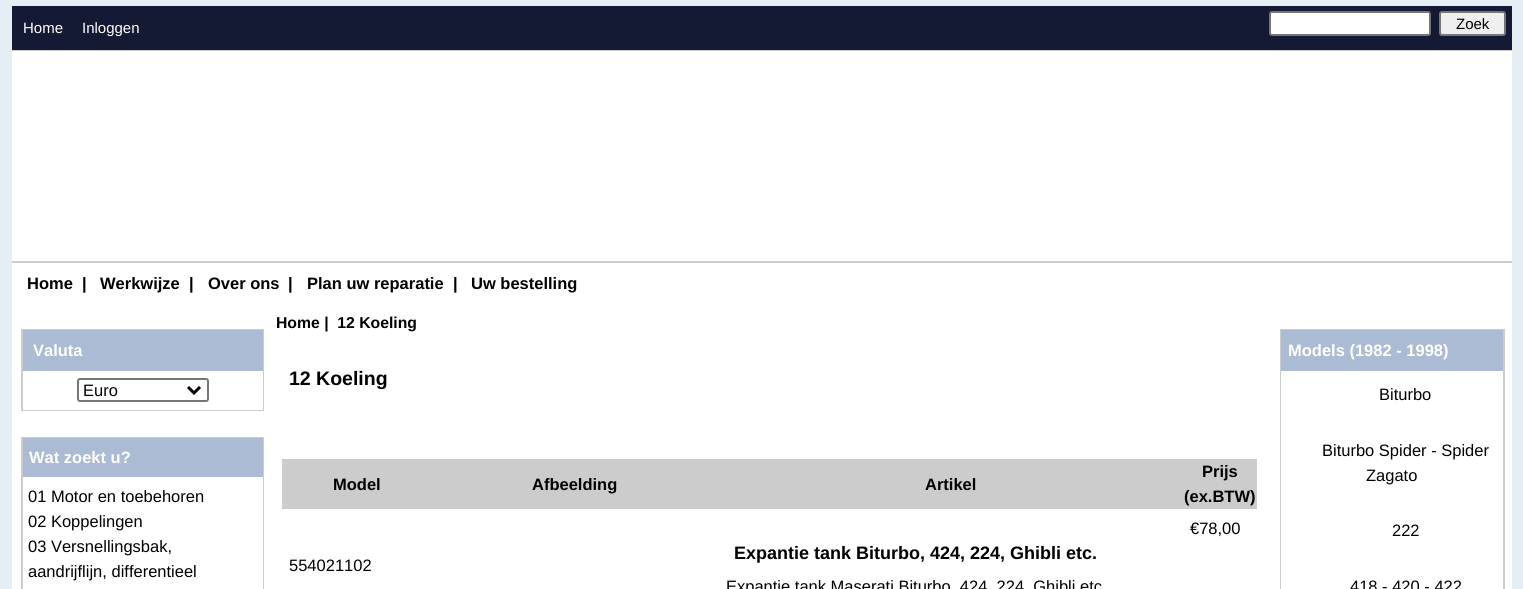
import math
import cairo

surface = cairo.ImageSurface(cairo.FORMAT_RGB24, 1523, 589)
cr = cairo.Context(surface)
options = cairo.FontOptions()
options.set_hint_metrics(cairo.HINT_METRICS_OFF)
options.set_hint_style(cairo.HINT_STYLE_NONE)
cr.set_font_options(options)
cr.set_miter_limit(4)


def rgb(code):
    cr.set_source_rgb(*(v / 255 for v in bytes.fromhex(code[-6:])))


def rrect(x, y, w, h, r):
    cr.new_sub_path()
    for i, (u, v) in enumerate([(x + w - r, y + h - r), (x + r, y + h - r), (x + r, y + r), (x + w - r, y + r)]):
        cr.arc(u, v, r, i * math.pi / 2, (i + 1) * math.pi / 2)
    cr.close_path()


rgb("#e5edf5")
cr.paint()
for x, y, w, h, color in [
    (12, 263, 1500, 326, "#ffffff"),
    (12, 6, 1500, 44, "#141a34"),
    (12, 50, 1500, 1, "#cccccc"),
]:
    rgb(color)
    cr.rectangle(x, y, w, h)
    cr.fill()
rgb("#ffffff")
rrect(1270, 12, 160, 23, 2)
cr.fill_preserve()
rgb("#767676")
cr.stroke()
rgb("#efefef")
rrect(1440, 12, 65, 23, 2)
cr.fill_preserve()
rgb("#767676")
cr.stroke()
rgb("#ffffff")
cr.rectangle(12, 51, 1500, 210)
cr.fill()
rgb("#cccccc")
cr.rectangle(12, 261, 1500, 2)
cr.fill()
cr.rectangle(22, 330, 241, 80)
cr.stroke()
rgb("#abbbd3")
cr.rectangle(23, 330, 240, 41)
cr.fill()
rgb("#ffffff")
cr.rectangle(23, 371, 240, 39)
cr.fill()
rrect(78, 379, 130, 22, 2)
rgb("#767676")
cr.stroke()
cr.new_path()
cr.move_to(188, 387)
cr.line_to(194, 393)
cr.line_to(200, 387)
rgb("#000000")
cr.set_line_width(3)
cr.stroke()
cr.rectangle(22, 438, 241, 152)
rgb("#cccccc")
cr.set_line_width(2)
cr.stroke()
for x, y, w, h, color in [
    (23, 438, 240, 39, "#abbbd3"),
    (262, 477, 1, 112, "#ffffff"),
    (282, 459, 975, 50, "#cccccc"),
]:
    rgb(color)
    cr.rectangle(x, y, w, h)
    cr.fill()
cr.rectangle(1281, 330, 223, 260)
cr.stroke()
rgb("#abbbd3")
cr.rectangle(1281, 330, 222, 41)
cr.fill()
rgb("#ffffff")
cr.rectangle(1281, 371, 1, 218)
cr.fill()
cr.select_font_face("Liberation Sans")
cr.set_font_size(15)
cr.move_to(23, 33)
cr.show_text("Home")
cr.move_to(82, 33)
cr.show_text("Inloggen")
rgb("#000000")
cr.move_to(1456, 29)
cr.show_text("Zoek")
cr.select_font_face("Liberation Sans", cairo.FONT_SLANT_NORMAL, cairo.FONT_WEIGHT_BOLD)
cr.set_font_size(16.5)
for x, y, s in [
    (27, 289, "Home"),
    (82, 289, "|"),
    (100, 289, "Werkwijze"),
    (189, 289, "|"),
    (208, 289, "Over ons"),
    (288, 289, "|"),
    (307, 289, "Plan uw reparatie"),
    (453, 289, "|"),
    (471, 289, "Uw bestelling"),
]:
    cr.move_to(x, y)
    cr.show_text(s)
rgb("#ffffff")
cr.move_to(33, 356)
cr.show_text("Valuta")
cr.select_font_face("Liberation Sans")
rgb("#000000")
cr.move_to(83, 396)
cr.show_text("Euro")
cr.select_font_face("Liberation Sans", cairo.FONT_SLANT_NORMAL, cairo.FONT_WEIGHT_BOLD)
rgb("#ffffff")
cr.move_to(29, 463)
cr.show_text("Wat zoekt u?")
cr.select_font_face("Liberation Sans")
rgb("#000000")
for x, y, s in [
    (28, 502, "01 Motor en toebehoren"),
    (28, 527, "02 Koppelingen"),
    (28, 552, "03 Versnellingsbak,"),
    (28, 577, "aandrijflijn, differentieel"),
]:
    cr.move_to(x, y)
    cr.show_text(s)
cr.select_font_face("Liberation Sans", cairo.FONT_SLANT_NORMAL, cairo.FONT_WEIGHT_BOLD)
cr.set_font_size(15.75)
cr.move_to(276, 328)
cr.show_text("Home |  12 Koeling")
cr.set_font_size(19.5)
cr.move_to(289, 385)
cr.show_text("12 Koeling")
cr.set_font_size(16.5)
for x, y, s in [
    (333, 490, "Model"),
    (532, 490, "Afbeelding"),
    (925, 490, "Artikel"),
    (1202, 477, "Prijs"),
    (1184, 502, "(ex.BTW)"),
]:
    cr.move_to(x, y)
    cr.show_text(s)
cr.select_font_face("Liberation Sans")
cr.move_to(1190, 534)
cr.show_text("€78,00")
cr.move_to(289, 571)
cr.show_text("554021102")
cr.select_font_face("Liberation Sans", cairo.FONT_SLANT_NORMAL, cairo.FONT_WEIGHT_BOLD)
cr.set_font_size(18)
cr.move_to(734, 559)
cr.show_text("Expantie tank Biturbo, 424, 224, Ghibli etc.")
cr.select_font_face("Liberation Sans")
cr.set_font_size(16.5)
cr.move_to(726, 592)
cr.show_text("Expantie tank Maserati Biturbo, 424, 224, Ghibli etc")
cr.select_font_face("Liberation Sans", cairo.FONT_SLANT_NORMAL, cairo.FONT_WEIGHT_BOLD)
rgb("#ffffff")
cr.move_to(1288, 356)
cr.show_text("Models (1982 - 1998)")
cr.select_font_face("Liberation Sans")
rgb("#000000")
for x, y, s in [
    (1379, 400, "Biturbo"),
    (1322, 456, "Biturbo Spider - Spider"),
    (1366, 481, "Zagato"),
    (1392, 536, "222"),
    (1350, 592, "418 - 420 - 422"),
]:
    cr.move_to(x, y)
    cr.show_text(s)
surface.write_to_png("page.png")
